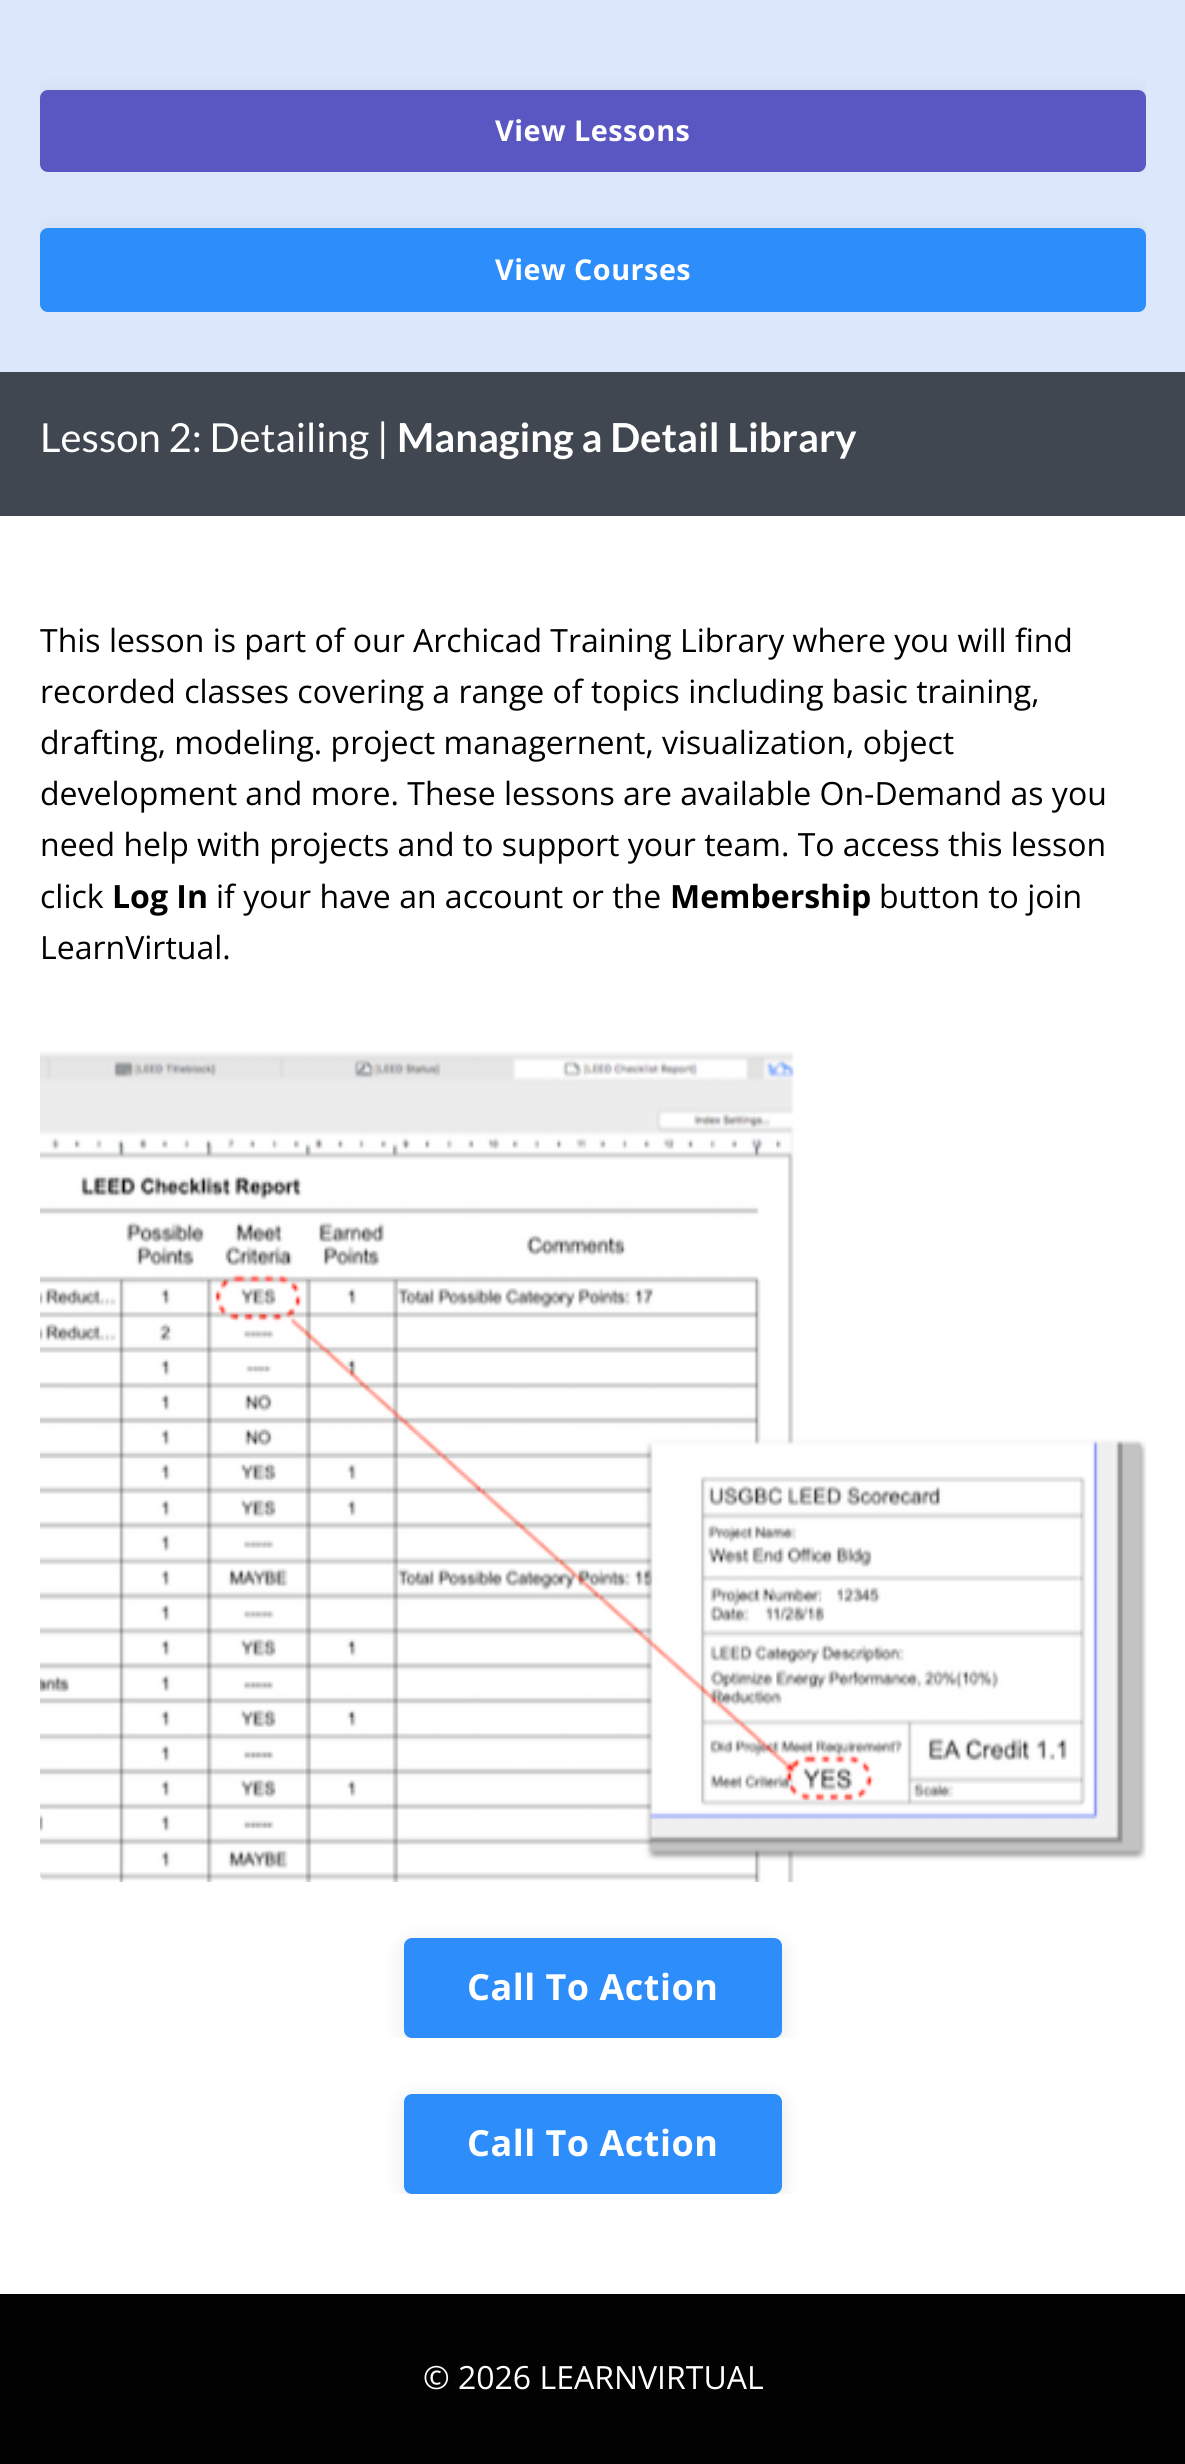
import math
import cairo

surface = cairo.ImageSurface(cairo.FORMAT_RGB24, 1185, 2464)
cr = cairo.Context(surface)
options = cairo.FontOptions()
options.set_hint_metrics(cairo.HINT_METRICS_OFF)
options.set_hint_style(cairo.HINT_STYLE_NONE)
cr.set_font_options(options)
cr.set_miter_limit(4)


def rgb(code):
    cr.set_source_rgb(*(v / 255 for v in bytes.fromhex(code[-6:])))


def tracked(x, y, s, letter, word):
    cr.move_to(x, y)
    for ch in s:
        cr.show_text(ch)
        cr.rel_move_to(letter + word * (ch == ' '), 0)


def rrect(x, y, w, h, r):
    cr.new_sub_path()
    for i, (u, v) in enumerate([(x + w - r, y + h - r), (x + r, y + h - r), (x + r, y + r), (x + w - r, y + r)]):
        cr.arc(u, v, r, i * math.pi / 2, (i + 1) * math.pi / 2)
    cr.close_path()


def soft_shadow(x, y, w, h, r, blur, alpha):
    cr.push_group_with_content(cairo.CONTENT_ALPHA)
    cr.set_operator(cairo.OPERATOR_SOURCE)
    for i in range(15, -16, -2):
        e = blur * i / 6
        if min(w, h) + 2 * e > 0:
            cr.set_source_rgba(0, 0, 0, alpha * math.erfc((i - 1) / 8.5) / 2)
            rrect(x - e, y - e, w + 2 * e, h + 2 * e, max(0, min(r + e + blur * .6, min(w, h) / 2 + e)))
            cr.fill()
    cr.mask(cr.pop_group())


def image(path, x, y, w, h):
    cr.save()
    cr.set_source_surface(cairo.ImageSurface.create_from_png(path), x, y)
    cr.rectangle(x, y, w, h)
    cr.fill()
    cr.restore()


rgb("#ffffff")
cr.paint()
rgb("#dbe8fc")
cr.rectangle(0, 0, 1185, 372)
cr.fill()
cr.save()
rrect(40, 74, 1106, 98, 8)
cr.clip()
rgb("#000000")
soft_shadow(40, 94, 1106, 82, 8, 10, 0.1)
cr.restore()
rgb("#5a57c3")
rrect(42, 92, 1102, 78, 6)
cr.fill_preserve()
cr.set_line_width(4)
cr.stroke()
cr.save()
rrect(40, 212, 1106, 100, 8)
cr.clip()
rgb("#000000")
soft_shadow(40, 232, 1106, 84, 8, 10, 0.1)
cr.restore()
rgb("#2d8efb")
rrect(42, 230, 1102, 80, 6)
cr.fill_preserve()
cr.stroke()
rgb("#414750")
cr.rectangle(0, 372, 1185, 144)
cr.fill()
image("img/1.png", 40, 1051, 1106, 831)
cr.save()
rrect(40, 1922, 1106, 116, 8)
cr.clip()
rgb("#000000")
soft_shadow(404, 1942, 378, 100, 8, 10, 0.1)
cr.restore()
rgb("#2d8efb")
rrect(406, 1940, 374, 96, 6)
cr.fill_preserve()
cr.stroke()
cr.save()
rrect(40, 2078, 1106, 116, 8)
cr.clip()
rgb("#000000")
soft_shadow(404, 2098, 378, 100, 8, 10, 0.1)
cr.restore()
rrect(406, 2096, 374, 96, 6)
cr.fill_preserve()
cr.stroke()
rgb("#020202")
cr.rectangle(0, 2294, 1185, 170)
cr.fill()
cr.select_font_face("Open Sans", cairo.FONT_SLANT_NORMAL, cairo.FONT_WEIGHT_BOLD)
cr.set_font_size(28.75)
rgb("#ffffff")
tracked(495, 141, "View Lessons", 0.5, 0)
tracked(495, 280, "View Courses", 0.5, 0)
cr.select_font_face("Lato")
cr.set_font_size(40)
cr.move_to(40, 452)
cr.show_text("Lesson 2: Detailing |")
cr.select_font_face("Lato", cairo.FONT_SLANT_NORMAL, cairo.FONT_WEIGHT_BOLD)
cr.move_to(397, 452)
cr.show_text("Managing a Detail Library")
cr.select_font_face("Open Sans")
cr.set_font_size(32)
rgb("#000000")
for x, y, s in [
    (40, 652, "This lesson is part of our Archicad Training Library where you will find"),
    (40, 703, "recorded classes covering a range of topics including basic training,"),
    (40, 754, "drafting, modeling. project managernent, visualization, object"),
    (40, 805, "development and more. These lessons are available On-Demand as you"),
    (40, 856, "need help with projects and to support your team. To access this lesson"),
    (40, 908, "click"),
]:
    cr.move_to(x, y)
    cr.show_text(s)
cr.select_font_face("Open Sans", cairo.FONT_SLANT_NORMAL, cairo.FONT_WEIGHT_BOLD)
cr.move_to(112, 908)
cr.show_text("Log In")
cr.select_font_face("Open Sans")
cr.move_to(216, 908)
cr.show_text("if your have an account or the")
cr.select_font_face("Open Sans", cairo.FONT_SLANT_NORMAL, cairo.FONT_WEIGHT_BOLD)
cr.move_to(670, 908)
cr.show_text("Membership")
cr.select_font_face("Open Sans")
cr.move_to(879, 908)
cr.show_text("button to join")
cr.move_to(40, 959)
cr.show_text("LearnVirtual.")
cr.select_font_face("Open Sans", cairo.FONT_SLANT_NORMAL, cairo.FONT_WEIGHT_BOLD)
cr.set_font_size(36)
rgb("#ffffff")
tracked(467, 2000, "Call To Action", 0.5, 0)
tracked(467, 2156, "Call To Action", 0.5, 0)
cr.select_font_face("Open Sans")
cr.set_font_size(32)
cr.move_to(423, 2389)
cr.show_text("© 2026 LEARNVIRTUAL")
surface.write_to_png("page.png")
